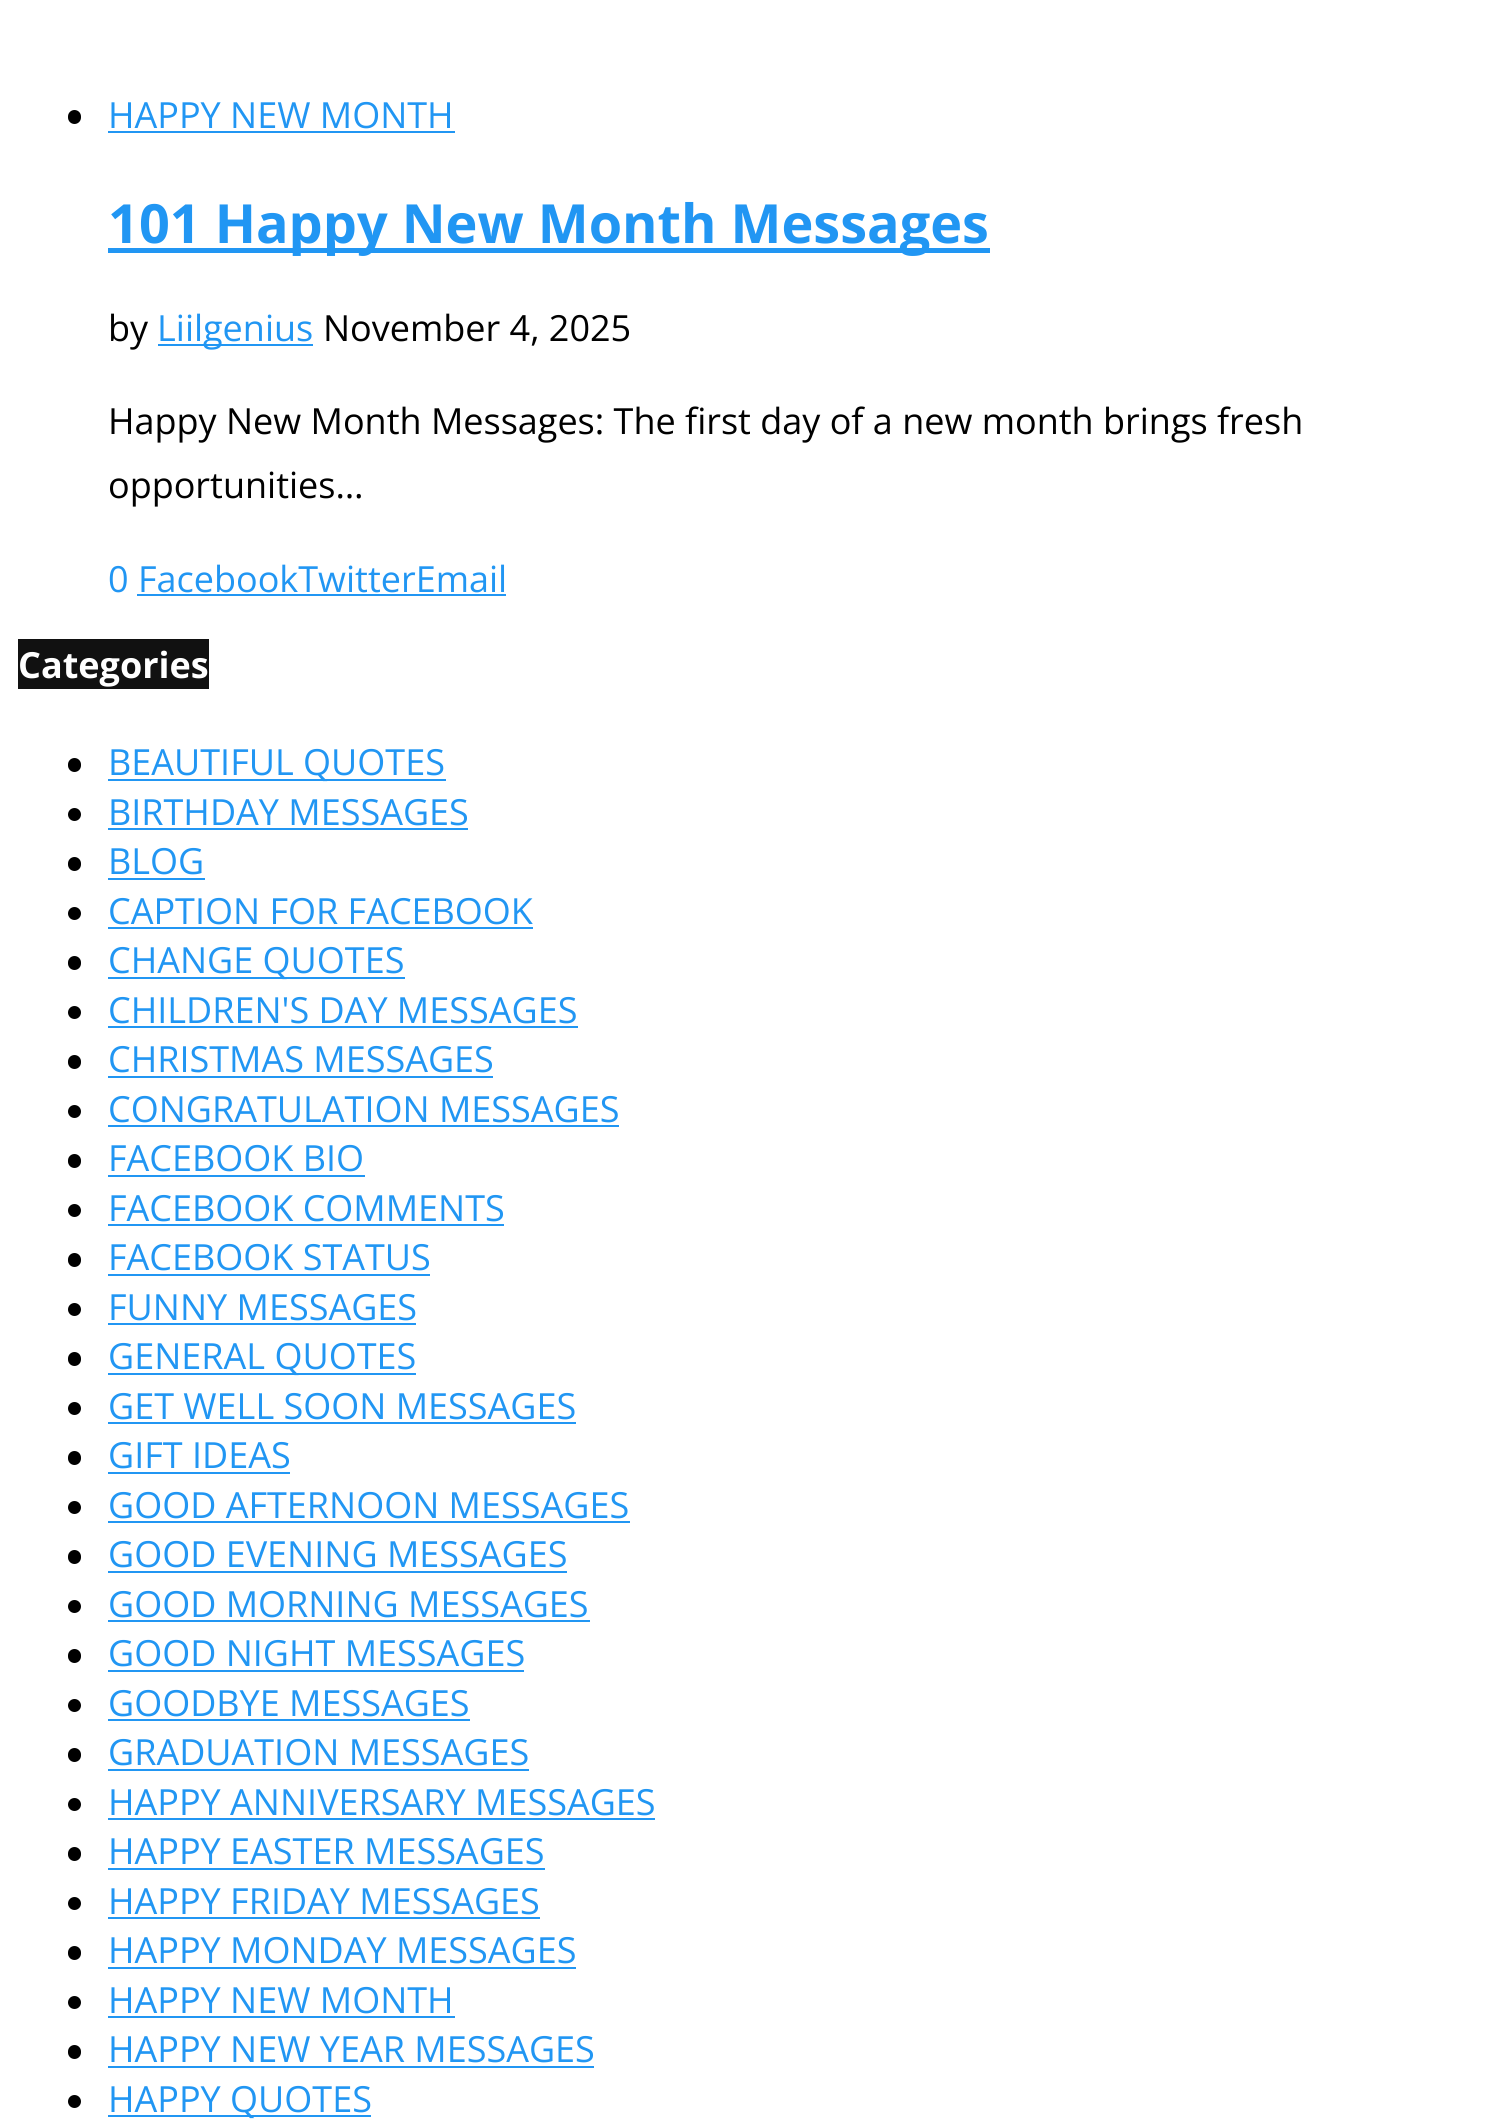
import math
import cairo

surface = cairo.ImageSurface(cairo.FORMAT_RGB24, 1502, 2128)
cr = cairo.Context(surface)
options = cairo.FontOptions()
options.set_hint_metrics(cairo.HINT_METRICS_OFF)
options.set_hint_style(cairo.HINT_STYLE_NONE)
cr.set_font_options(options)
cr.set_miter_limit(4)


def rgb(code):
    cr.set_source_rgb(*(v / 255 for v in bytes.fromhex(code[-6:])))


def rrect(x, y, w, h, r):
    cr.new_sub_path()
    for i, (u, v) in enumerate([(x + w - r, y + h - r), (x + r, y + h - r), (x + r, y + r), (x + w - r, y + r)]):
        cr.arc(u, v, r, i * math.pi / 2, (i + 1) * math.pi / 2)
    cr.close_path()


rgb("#ffffff")
cr.paint()
rgb("#000000")
rrect(68, 110, 13, 14, 6.5)
cr.fill()
for x, y, w, h, color in [
    (108, 131, 347, 2, "#2196f3"),
    (108, 248, 882, 5, "#2196f3"),
    (158, 344, 155, 2, "#2196f3"),
    (137, 594, 369, 2, "#2196f3"),
    (18, 639, 191, 50, "#111111"),
]:
    rgb(color)
    cr.rectangle(x, y, w, h)
    cr.fill()
rgb("#000000")
rrect(68, 758, 13, 14, 6.5)
cr.fill()
rgb("#2196f3")
cr.rectangle(108, 779, 338, 2)
cr.fill()
rgb("#000000")
cr.arc(74.5, 814.5, 6.5, 0, 2 * math.pi)
cr.fill()
rgb("#2196f3")
cr.rectangle(108, 828, 360, 2)
cr.fill()
rgb("#000000")
rrect(68, 857, 13, 14, 6.5)
cr.fill()
rgb("#2196f3")
cr.rectangle(108, 878, 97, 2)
cr.fill()
rgb("#000000")
cr.arc(74.5, 913.5, 6.5, 0, 2 * math.pi)
cr.fill()
rgb("#2196f3")
cr.rectangle(108, 927, 425, 2)
cr.fill()
rgb("#000000")
rrect(68, 956, 13, 14, 6.5)
cr.fill()
rgb("#2196f3")
cr.rectangle(108, 977, 297, 2)
cr.fill()
rgb("#000000")
cr.arc(74.5, 1012.5, 6.5, 0, 2 * math.pi)
cr.fill()
rgb("#2196f3")
cr.rectangle(108, 1026, 470, 2)
cr.fill()
rgb("#000000")
rrect(68, 1055, 13, 14, 6.5)
cr.fill()
rgb("#2196f3")
cr.rectangle(108, 1076, 385, 2)
cr.fill()
rgb("#000000")
cr.arc(74.5, 1111.5, 6.5, 0, 2 * math.pi)
cr.fill()
rgb("#2196f3")
cr.rectangle(108, 1125, 511, 2)
cr.fill()
rgb("#000000")
rrect(68, 1154, 13, 14, 6.5)
cr.fill()
rgb("#2196f3")
cr.rectangle(108, 1175, 257, 2)
cr.fill()
rgb("#000000")
cr.arc(74.5, 1210.5, 6.5, 0, 2 * math.pi)
cr.fill()
rgb("#2196f3")
cr.rectangle(108, 1224, 396, 2)
cr.fill()
rgb("#000000")
rrect(68, 1253, 13, 14, 6.5)
cr.fill()
rgb("#2196f3")
cr.rectangle(108, 1274, 322, 2)
cr.fill()
rgb("#000000")
cr.arc(74.5, 1309.5, 6.5, 0, 2 * math.pi)
cr.fill()
rgb("#2196f3")
cr.rectangle(108, 1323, 308, 2)
cr.fill()
rgb("#000000")
rrect(68, 1352, 13, 14, 6.5)
cr.fill()
rgb("#2196f3")
cr.rectangle(108, 1373, 308, 2)
cr.fill()
rgb("#000000")
cr.arc(74.5, 1408.5, 6.5, 0, 2 * math.pi)
cr.fill()
rgb("#2196f3")
cr.rectangle(108, 1422, 468, 2)
cr.fill()
rgb("#000000")
rrect(68, 1451, 13, 14, 6.5)
cr.fill()
rgb("#2196f3")
cr.rectangle(108, 1472, 182, 2)
cr.fill()
rgb("#000000")
cr.arc(74.5, 1507.5, 6.5, 0, 2 * math.pi)
cr.fill()
rgb("#2196f3")
cr.rectangle(108, 1521, 522, 2)
cr.fill()
rgb("#000000")
rrect(68, 1550, 13, 14, 6.5)
cr.fill()
rgb("#2196f3")
cr.rectangle(108, 1571, 459, 2)
cr.fill()
rgb("#000000")
cr.arc(74.5, 1606.5, 6.5, 0, 2 * math.pi)
cr.fill()
rgb("#2196f3")
cr.rectangle(108, 1620, 482, 2)
cr.fill()
rgb("#000000")
rrect(68, 1649, 13, 14, 6.5)
cr.fill()
rgb("#2196f3")
cr.rectangle(108, 1670, 416, 2)
cr.fill()
rgb("#000000")
cr.arc(74.5, 1705.5, 6.5, 0, 2 * math.pi)
cr.fill()
rgb("#2196f3")
cr.rectangle(108, 1719, 362, 2)
cr.fill()
rgb("#000000")
rrect(68, 1748, 13, 14, 6.5)
cr.fill()
rgb("#2196f3")
cr.rectangle(108, 1769, 421, 2)
cr.fill()
rgb("#000000")
cr.arc(74.5, 1804.5, 6.5, 0, 2 * math.pi)
cr.fill()
rgb("#2196f3")
cr.rectangle(108, 1818, 547, 2)
cr.fill()
rgb("#000000")
rrect(68, 1847, 13, 14, 6.5)
cr.fill()
rgb("#2196f3")
cr.rectangle(108, 1868, 437, 2)
cr.fill()
rgb("#000000")
cr.arc(74.5, 1903.5, 6.5, 0, 2 * math.pi)
cr.fill()
rgb("#2196f3")
cr.rectangle(108, 1917, 432, 2)
cr.fill()
rgb("#000000")
rrect(68, 1946, 13, 14, 6.5)
cr.fill()
rgb("#2196f3")
cr.rectangle(108, 1967, 468, 2)
cr.fill()
rgb("#000000")
cr.arc(74.5, 2002.5, 6.5, 0, 2 * math.pi)
cr.fill()
rgb("#2196f3")
cr.rectangle(108, 2016, 347, 2)
cr.fill()
rgb("#000000")
rrect(68, 2045, 13, 14, 6.5)
cr.fill()
rgb("#2196f3")
cr.rectangle(108, 2066, 486, 2)
cr.fill()
rgb("#000000")
cr.arc(74.5, 2101.5, 6.5, 0, 2 * math.pi)
cr.fill()
rgb("#2196f3")
cr.rectangle(108, 2115, 263, 2)
cr.fill()
cr.select_font_face("Open Sans")
cr.set_font_size(36)
cr.move_to(108, 128)
cr.show_text("HAPPY NEW MONTH")
cr.select_font_face("Open Sans", cairo.FONT_SLANT_NORMAL, cairo.FONT_WEIGHT_BOLD)
cr.set_font_size(54)
cr.move_to(108, 243)
cr.show_text("101 Happy New Month Messages")
cr.select_font_face("Open Sans")
cr.set_font_size(36)
rgb("#000000")
cr.move_to(108, 341)
cr.show_text("by")
rgb("#2196f3")
cr.move_to(157, 341)
cr.show_text("Liilgenius")
rgb("#000000")
for x, y, s in [
    (323, 341, "November 4, 2025"),
    (108, 434, "Happy New Month Messages: The first day of a new month brings fresh"),
    (108, 498, "opportunities…"),
]:
    cr.move_to(x, y)
    cr.show_text(s)
rgb("#2196f3")
cr.move_to(108, 592)
cr.show_text("0 FacebookTwitterEmail")
cr.select_font_face("Open Sans", cairo.FONT_SLANT_NORMAL, cairo.FONT_WEIGHT_BOLD)
rgb("#ffffff")
cr.move_to(18, 678)
cr.show_text("Categories")
cr.select_font_face("Open Sans")
rgb("#2196f3")
for x, y, s in [
    (108, 775, "BEAUTIFUL QUOTES"),
    (108, 825, "BIRTHDAY MESSAGES"),
    (108, 874, "BLOG"),
    (108, 924, "CAPTION FOR FACEBOOK"),
    (108, 973, "CHANGE QUOTES"),
    (108, 1023, "CHILDREN'S DAY MESSAGES"),
    (108, 1072, "CHRISTMAS MESSAGES"),
    (108, 1122, "CONGRATULATION MESSAGES"),
    (108, 1171, "FACEBOOK BIO"),
    (108, 1221, "FACEBOOK COMMENTS"),
    (108, 1270, "FACEBOOK STATUS"),
    (108, 1320, "FUNNY MESSAGES"),
    (108, 1369, "GENERAL QUOTES"),
    (108, 1419, "GET WELL SOON MESSAGES"),
    (108, 1468, "GIFT IDEAS"),
    (108, 1518, "GOOD AFTERNOON MESSAGES"),
    (108, 1567, "GOOD EVENING MESSAGES"),
    (108, 1617, "GOOD MORNING MESSAGES"),
    (108, 1666, "GOOD NIGHT MESSAGES"),
    (108, 1716, "GOODBYE MESSAGES"),
    (108, 1765, "GRADUATION MESSAGES"),
    (108, 1815, "HAPPY ANNIVERSARY MESSAGES"),
    (108, 1864, "HAPPY EASTER MESSAGES"),
    (108, 1914, "HAPPY FRIDAY MESSAGES"),
    (108, 1963, "HAPPY MONDAY MESSAGES"),
    (108, 2013, "HAPPY NEW MONTH"),
    (108, 2062, "HAPPY NEW YEAR MESSAGES"),
    (108, 2112, "HAPPY QUOTES"),
]:
    cr.move_to(x, y)
    cr.show_text(s)
surface.write_to_png("page.png")
